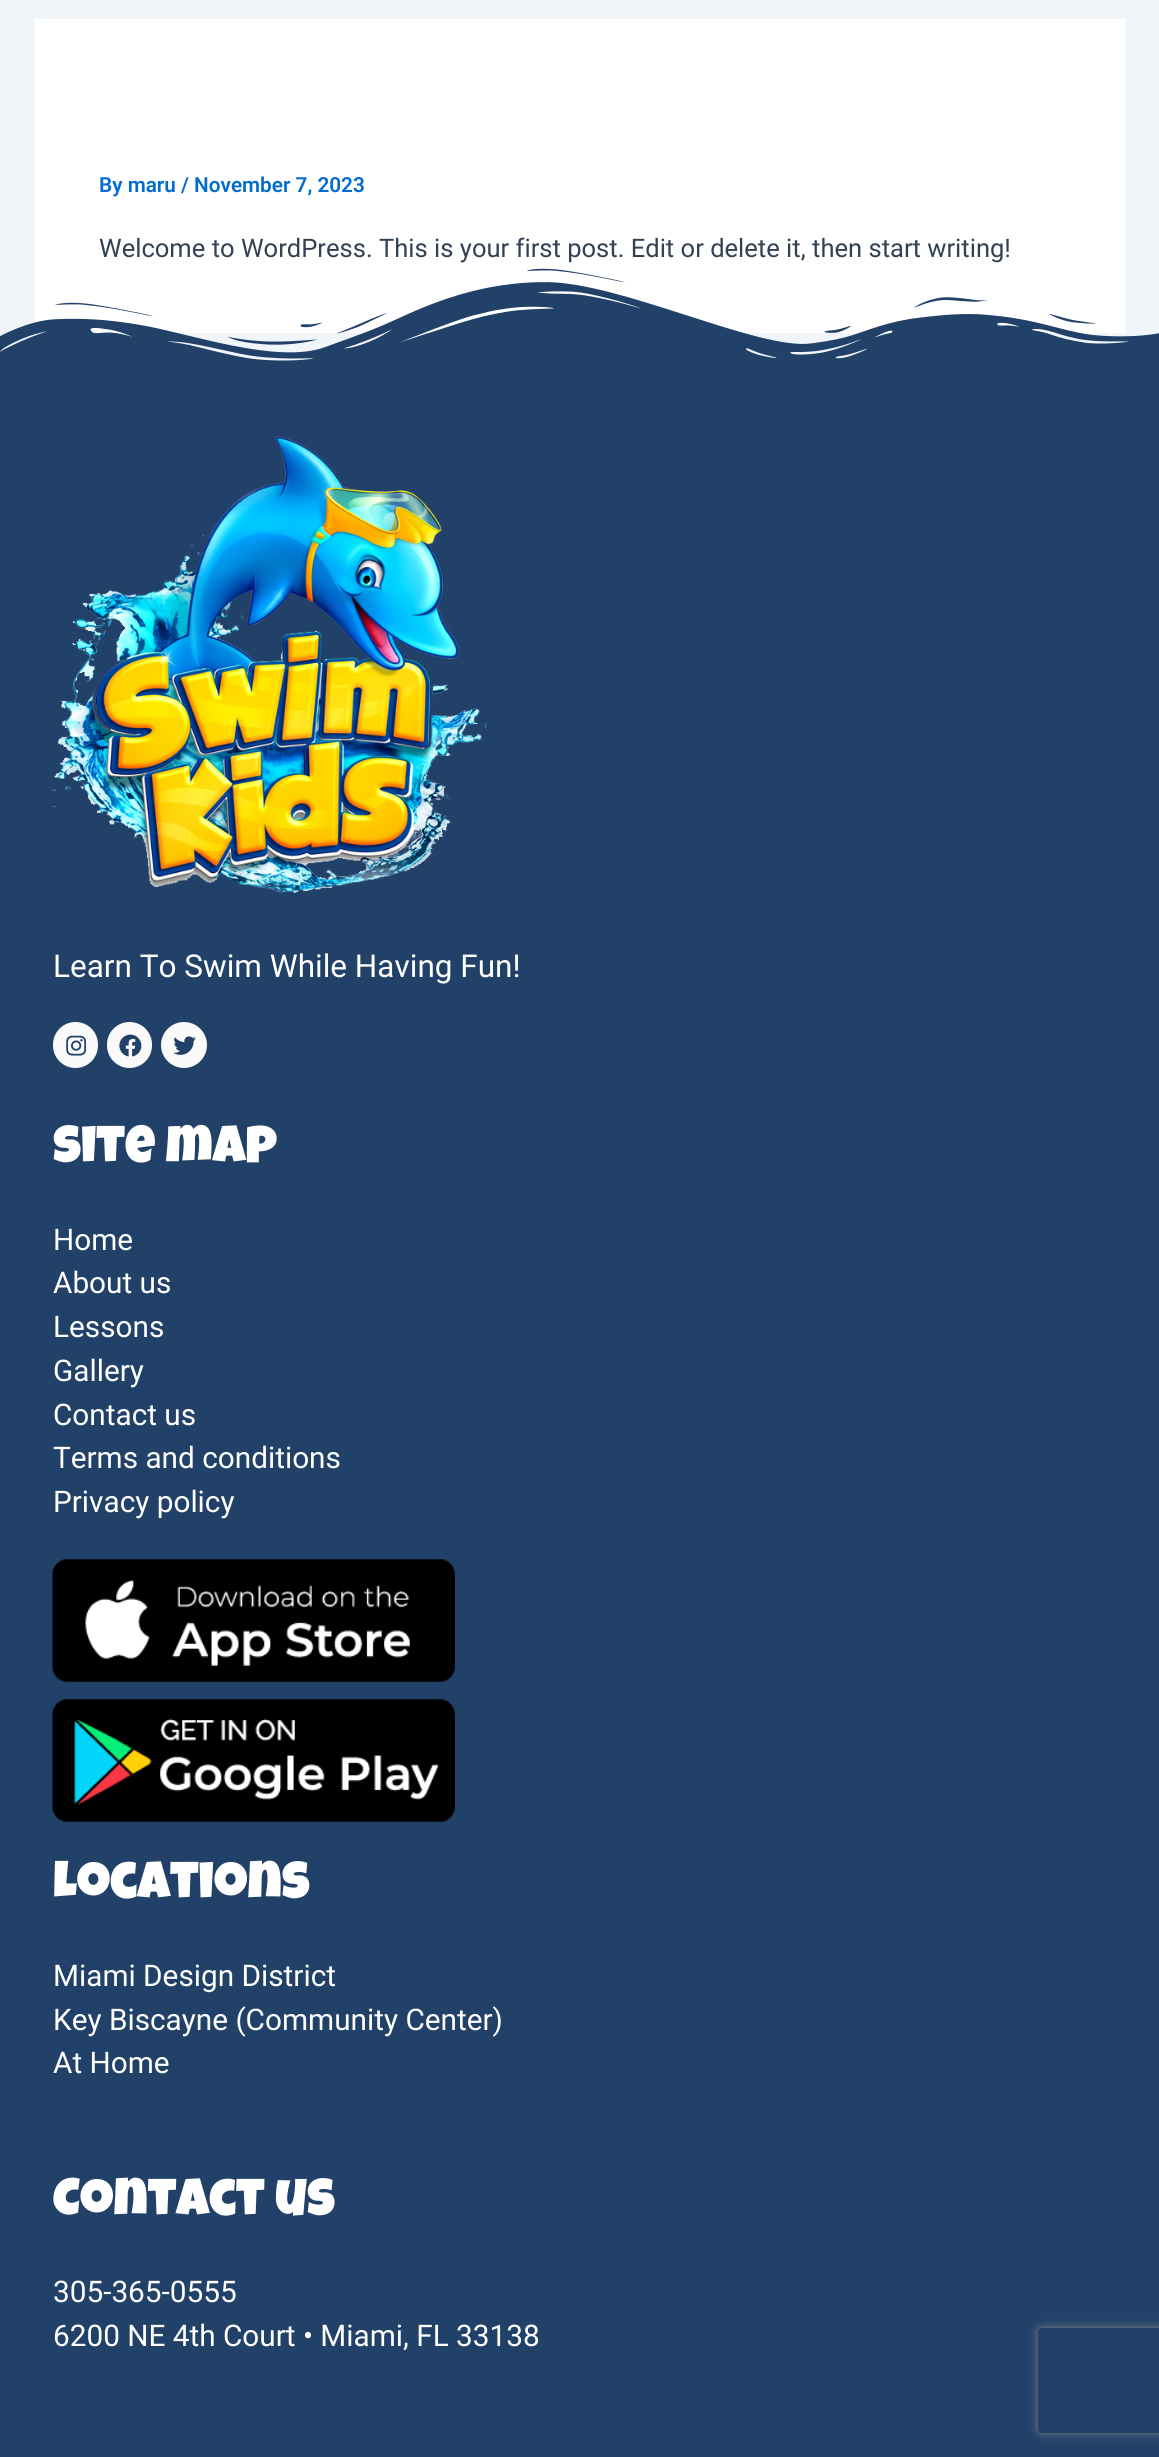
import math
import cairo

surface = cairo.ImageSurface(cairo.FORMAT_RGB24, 1159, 2457)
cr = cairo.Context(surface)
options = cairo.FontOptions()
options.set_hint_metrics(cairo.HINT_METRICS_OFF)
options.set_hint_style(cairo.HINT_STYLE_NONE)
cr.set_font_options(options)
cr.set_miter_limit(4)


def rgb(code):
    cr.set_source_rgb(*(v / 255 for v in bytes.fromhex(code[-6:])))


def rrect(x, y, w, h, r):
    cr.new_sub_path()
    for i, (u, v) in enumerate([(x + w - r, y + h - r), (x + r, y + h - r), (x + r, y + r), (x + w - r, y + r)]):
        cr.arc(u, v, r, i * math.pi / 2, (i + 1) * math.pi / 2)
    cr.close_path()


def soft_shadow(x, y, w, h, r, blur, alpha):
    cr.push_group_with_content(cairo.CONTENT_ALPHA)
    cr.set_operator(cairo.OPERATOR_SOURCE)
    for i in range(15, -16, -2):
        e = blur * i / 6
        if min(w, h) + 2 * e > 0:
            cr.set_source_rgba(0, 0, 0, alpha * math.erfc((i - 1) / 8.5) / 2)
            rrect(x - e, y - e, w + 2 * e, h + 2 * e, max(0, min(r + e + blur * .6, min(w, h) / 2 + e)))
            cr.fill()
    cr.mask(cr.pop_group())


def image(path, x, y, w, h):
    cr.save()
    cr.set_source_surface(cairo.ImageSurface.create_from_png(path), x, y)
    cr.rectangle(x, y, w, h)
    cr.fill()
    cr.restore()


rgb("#f0f5fa")
cr.paint()
rgb("#ffffff")
cr.rectangle(35, 19, 1090, 314)
cr.fill()
image("img/1.png", 0, 268, 1159, 105)
rgb("#224169")
cr.rectangle(0, 373, 1159, 2084)
cr.fill()
image("img/2.png", 52, 436, 435, 457)
rgb("#fafafa")
rrect(53, 1022, 45, 46, 22.5)
cr.fill()
image("img/3.png", 66, 1035, 20, 21)
rrect(107, 1022, 45, 46, 22.5)
cr.fill()
image("img/4.png", 119, 1034, 23, 23)
cr.arc(184, 1045, 23, 0, 2 * math.pi)
cr.fill()
image("img/5.png", 173, 1036, 23, 19)
image("img/6.png", 52, 1559, 403, 123)
image("img/7.png", 52, 1699, 403, 123)
cr.save()
cr.set_fill_rule(cairo.FILL_RULE_EVEN_ODD)
cr.new_path()
cr.move_to(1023, 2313)
cr.line_to(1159, 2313)
cr.line_to(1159, 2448)
cr.line_to(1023, 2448)
cr.close_path()
cr.move_to(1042, 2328)
cr.line_to(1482, 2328)
cr.curve_to(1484, 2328, 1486, 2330, 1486, 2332)
cr.line_to(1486, 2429)
cr.curve_to(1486, 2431, 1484, 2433, 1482, 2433)
cr.line_to(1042, 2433)
cr.curve_to(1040, 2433, 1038, 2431, 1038, 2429)
cr.line_to(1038, 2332)
cr.curve_to(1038, 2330, 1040, 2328, 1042, 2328)
cr.close_path()
cr.clip()
rgb("#808080")
soft_shadow(1038, 2328, 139, 105, 4, 4.5, 1)
cr.restore()
cr.select_font_face("Roboto SemiBold")
cr.set_font_size(20.75)
rgb("#046bd2")
cr.move_to(99, 192)
cr.show_text("By maru / November 7, 2023")
cr.select_font_face("Roboto")
cr.set_font_size(25.55)
rgb("#334155")
cr.move_to(99, 257)
cr.show_text("Welcome to WordPress. This is your first post. Edit or delete it, then start writing!")
cr.set_font_size(31.5)
rgb("#ffffff")
cr.move_to(53, 977)
cr.show_text("Learn To Swim While Having Fun!")
cr.select_font_face("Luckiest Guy")
cr.set_font_size(52.5)
cr.move_to(53, 1162)
cr.show_text("site map")
cr.select_font_face("Roboto")
cr.set_font_size(29.75)
for x, y, s in [
    (53, 1250, "Home"),
    (53, 1293, "About us"),
    (53, 1337, "Lessons"),
    (53, 1381, "Gallery"),
    (53, 1425, "Contact us"),
    (53, 1468, "Terms and conditions"),
    (53, 1512, "Privacy policy"),
]:
    cr.move_to(x, y)
    cr.show_text(s)
cr.select_font_face("Luckiest Guy")
cr.set_font_size(52.5)
cr.move_to(53, 1898)
cr.show_text("Locations")
cr.select_font_face("Roboto")
cr.set_font_size(29.75)
for x, y, s in [
    (53, 1986, "Miami Design District"),
    (53, 2030, "Key Biscayne (Community Center)"),
    (53, 2073, "At Home"),
]:
    cr.move_to(x, y)
    cr.show_text(s)
cr.select_font_face("Luckiest Guy")
cr.set_font_size(52.5)
cr.move_to(53, 2215)
cr.show_text("Contact us")
cr.select_font_face("Roboto")
cr.set_font_size(29.75)
cr.move_to(53, 2302)
cr.show_text("305-365-0555")
cr.move_to(53, 2346)
cr.show_text("6200 NE 4th Court • Miami, FL 33138")
surface.write_to_png("page.png")
